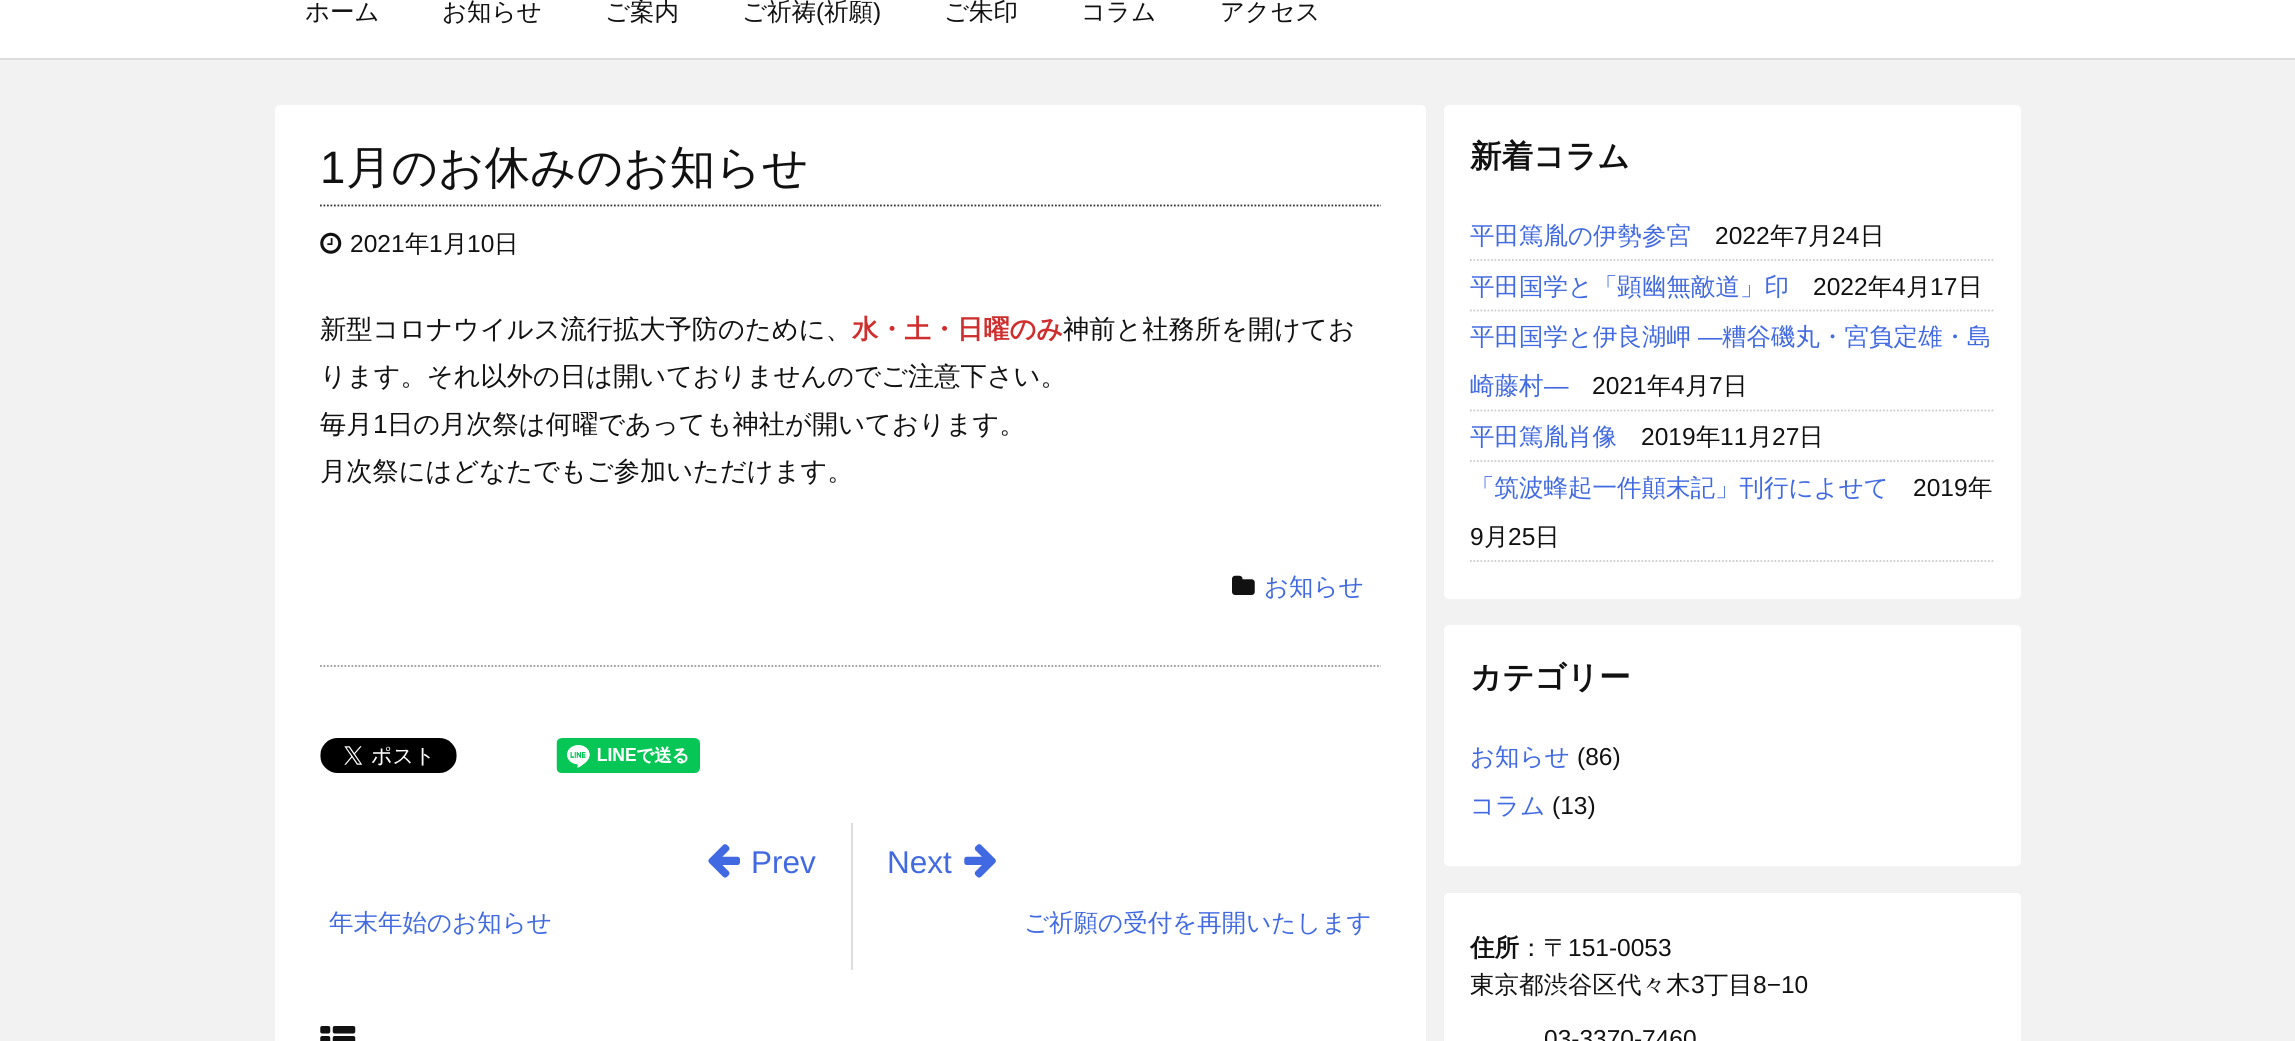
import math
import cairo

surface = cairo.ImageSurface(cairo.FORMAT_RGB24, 2295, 1041)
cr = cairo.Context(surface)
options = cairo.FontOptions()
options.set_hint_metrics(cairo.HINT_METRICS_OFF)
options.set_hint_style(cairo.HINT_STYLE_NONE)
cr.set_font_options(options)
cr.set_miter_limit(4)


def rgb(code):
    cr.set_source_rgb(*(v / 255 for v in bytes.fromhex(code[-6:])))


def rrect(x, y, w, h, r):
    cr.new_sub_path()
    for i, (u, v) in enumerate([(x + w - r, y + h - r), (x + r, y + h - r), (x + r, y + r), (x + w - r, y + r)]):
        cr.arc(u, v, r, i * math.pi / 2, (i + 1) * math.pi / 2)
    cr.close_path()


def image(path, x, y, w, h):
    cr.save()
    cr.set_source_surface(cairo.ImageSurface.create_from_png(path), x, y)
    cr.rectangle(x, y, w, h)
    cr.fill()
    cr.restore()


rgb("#f2f2f2")
cr.paint()
rgb("#ffffff")
cr.rectangle(0, 0, 2295, 58)
cr.fill()
rgb("#dddddd")
cr.rectangle(0, 58, 2295, 2)
cr.fill()
rgb("#ffffff")
cr.new_path()
cr.move_to(280, 105)
cr.line_to(1421, 105)
cr.curve_to(1424, 105, 1426, 107, 1426, 110)
cr.line_to(1426, 823)
cr.line_to(275, 823)
cr.line_to(275, 110)
cr.curve_to(275, 107, 277, 105, 280, 105)
cr.close_path()
cr.fill()
cr.new_path()
cr.move_to(320, 205.5)
cr.line_to(1381, 205.5)
rgb("#333333")
cr.set_line_width(1.8)
cr.set_dash([1.75, 1.75])
cr.stroke()
image("img/1.png", 320, 232, 22, 22)
image("img/2.png", 1232, 575, 23, 20)
cr.new_path()
cr.move_to(320, 666)
cr.line_to(1381, 666)
rgb("#999999")
cr.stroke()
image("img/3.png", 320, 738, 137, 35)
image("img/4.png", 556, 738, 145, 35)
rgb("#ffffff")
cr.rectangle(275, 823, 1151, 218)
cr.fill()
image("img/5.png", 320, 1026, 36, 15)
image("img/6.png", 708, 844, 32, 34)
rgb("#dddddd")
cr.rectangle(851, 823, 2, 147)
cr.fill()
image("img/7.png", 964, 844, 32, 34)
rgb("#ffffff")
rrect(1444, 105, 577, 494, 5)
cr.fill()
cr.new_path()
cr.move_to(1470, 260)
cr.line_to(1995, 260)
rgb("#cccccc")
cr.stroke()
cr.new_path()
cr.move_to(1470, 310.5)
cr.line_to(1995, 310.5)
cr.stroke()
cr.new_path()
cr.move_to(1470, 410.5)
cr.line_to(1995, 410.5)
cr.stroke()
cr.new_path()
cr.move_to(1470, 461)
cr.line_to(1995, 461)
cr.stroke()
cr.new_path()
cr.move_to(1470, 561)
cr.line_to(1995, 561)
cr.stroke()
rgb("#ffffff")
rrect(1444, 625, 577, 241, 5)
cr.fill()
rrect(1444, 893, 577, 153, 5)
cr.fill()
cr.select_font_face("WenQuanYi Zen Hei Medium")
cr.set_font_size(24.5)
rgb("#111111")
for x, y, s in [
    (305, 20, "ホーム"),
    (442, 20, "お知らせ"),
    (605, 20, "ご案内"),
    (742, 20, "ご祈祷"),
]:
    cr.move_to(x, y)
    cr.show_text(s)
cr.select_font_face("Liberation Sans")
cr.move_to(816, 20)
cr.show_text("(")
cr.select_font_face("WenQuanYi Zen Hei Medium")
cr.move_to(824, 20)
cr.show_text("祈願")
cr.select_font_face("Liberation Sans")
cr.move_to(873, 20)
cr.show_text(")")
cr.select_font_face("WenQuanYi Zen Hei Medium")
for x, y, s in [
    (944, 20, "ご朱印"),
    (1081, 20, "コラム"),
    (1220, 20, "アクセス"),
]:
    cr.move_to(x, y)
    cr.show_text(s)
cr.select_font_face("Liberation Sans")
cr.set_font_size(45.5)
cr.move_to(320, 183)
cr.show_text("1")
cr.select_font_face("WenQuanYi Zen Hei Medium")
cr.move_to(346, 183)
cr.show_text("月のお休みのお知らせ")
cr.select_font_face("Liberation Sans")
cr.set_font_size(24.5)
cr.move_to(350, 252)
cr.show_text("2021")
cr.select_font_face("WenQuanYi Zen Hei Medium")
cr.move_to(405, 252)
cr.show_text("年")
cr.select_font_face("Liberation Sans")
cr.move_to(429, 252)
cr.show_text("1")
cr.select_font_face("WenQuanYi Zen Hei Medium")
cr.move_to(443, 252)
cr.show_text("月")
cr.select_font_face("Liberation Sans")
cr.move_to(467, 252)
cr.show_text("10")
cr.select_font_face("WenQuanYi Zen Hei Medium")
cr.move_to(494, 252)
cr.show_text("日")
cr.set_font_size(26.25)
cr.move_to(320, 338)
cr.show_text("新型コロナウイルス流行拡大予防のために、")
cr.select_font_face("WenQuanYi Zen Hei", cairo.FONT_SLANT_NORMAL, cairo.FONT_WEIGHT_BOLD)
rgb("#cf2e2e")
cr.move_to(852, 338)
cr.show_text("水・土・日曜のみ")
cr.select_font_face("WenQuanYi Zen Hei Medium")
rgb("#111111")
for x, y, s in [
    (1063, 338, "神前と社務所を開けてお"),
    (320, 385, "ります。それ以外の日は開いておりませんのでご注意下さい。"),
    (320, 433, "毎月"),
]:
    cr.move_to(x, y)
    cr.show_text(s)
cr.select_font_face("Liberation Sans")
cr.move_to(373, 433)
cr.show_text("1")
cr.select_font_face("WenQuanYi Zen Hei Medium")
cr.move_to(387, 433)
cr.show_text("日の月次祭は何曜であっても神社が開いております。")
cr.move_to(320, 480)
cr.show_text("月次祭にはどなたでもご参加いただけます。")
cr.set_font_size(24.5)
rgb("#4169e1")
cr.move_to(1264, 595)
cr.show_text("お知らせ")
cr.select_font_face("Liberation Sans")
cr.set_font_size(31.5)
cr.move_to(751, 873)
cr.show_text("Prev")
cr.select_font_face("WenQuanYi Zen Hei Medium")
cr.set_font_size(24.5)
cr.move_to(329, 931)
cr.show_text("年末年始のお知らせ")
cr.select_font_face("Liberation Sans")
cr.set_font_size(31.5)
cr.move_to(887, 873)
cr.show_text("Next")
cr.select_font_face("WenQuanYi Zen Hei Medium")
cr.set_font_size(24.5)
cr.move_to(1024, 931)
cr.show_text("ご祈願の受付を再開いたします")
cr.select_font_face("WenQuanYi Zen Hei", cairo.FONT_SLANT_NORMAL, cairo.FONT_WEIGHT_BOLD)
cr.set_font_size(31.5)
rgb("#111111")
cr.move_to(1470, 167)
cr.show_text("新着コラム")
cr.select_font_face("WenQuanYi Zen Hei Medium")
cr.set_font_size(24.5)
rgb("#4169e1")
cr.move_to(1470, 244)
cr.show_text("平田篤胤の伊勢参宮")
cr.select_font_face("Liberation Sans")
rgb("#111111")
cr.move_to(1715, 244)
cr.show_text("2022")
cr.select_font_face("WenQuanYi Zen Hei Medium")
cr.move_to(1770, 244)
cr.show_text("年")
cr.select_font_face("Liberation Sans")
cr.move_to(1794, 244)
cr.show_text("7")
cr.select_font_face("WenQuanYi Zen Hei Medium")
cr.move_to(1808, 244)
cr.show_text("月")
cr.select_font_face("Liberation Sans")
cr.move_to(1832, 244)
cr.show_text("24")
cr.select_font_face("WenQuanYi Zen Hei Medium")
cr.move_to(1860, 244)
cr.show_text("日")
rgb("#4169e1")
cr.move_to(1470, 295)
cr.show_text("平田国学と「顕幽無敵道」印")
cr.select_font_face("Liberation Sans")
rgb("#111111")
cr.move_to(1813, 295)
cr.show_text("2022")
cr.select_font_face("WenQuanYi Zen Hei Medium")
cr.move_to(1868, 295)
cr.show_text("年")
cr.select_font_face("Liberation Sans")
cr.move_to(1892, 295)
cr.show_text("4")
cr.select_font_face("WenQuanYi Zen Hei Medium")
cr.move_to(1906, 295)
cr.show_text("月")
cr.select_font_face("Liberation Sans")
cr.move_to(1930, 295)
cr.show_text("17")
cr.select_font_face("WenQuanYi Zen Hei Medium")
cr.move_to(1958, 295)
cr.show_text("日")
rgb("#4169e1")
cr.move_to(1470, 345)
cr.show_text("平田国学と伊良湖岬")
cr.select_font_face("Liberation Sans")
cr.move_to(1698, 345)
cr.show_text("―")
cr.select_font_face("WenQuanYi Zen Hei Medium")
cr.move_to(1722, 345)
cr.show_text("糟谷磯丸・宮負定雄・島")
cr.move_to(1470, 394)
cr.show_text("崎藤村")
cr.select_font_face("Liberation Sans")
cr.move_to(1544, 394)
cr.show_text("―")
rgb("#111111")
cr.move_to(1592, 394)
cr.show_text("2021")
cr.select_font_face("WenQuanYi Zen Hei Medium")
cr.move_to(1647, 394)
cr.show_text("年")
cr.select_font_face("Liberation Sans")
cr.move_to(1671, 394)
cr.show_text("4")
cr.select_font_face("WenQuanYi Zen Hei Medium")
cr.move_to(1685, 394)
cr.show_text("月")
cr.select_font_face("Liberation Sans")
cr.move_to(1709, 394)
cr.show_text("7")
cr.select_font_face("WenQuanYi Zen Hei Medium")
cr.move_to(1723, 394)
cr.show_text("日")
rgb("#4169e1")
cr.move_to(1470, 445)
cr.show_text("平田篤胤肖像")
cr.select_font_face("Liberation Sans")
rgb("#111111")
cr.move_to(1641, 445)
cr.show_text("2019")
cr.select_font_face("WenQuanYi Zen Hei Medium")
cr.move_to(1696, 445)
cr.show_text("年")
cr.select_font_face("Liberation Sans")
cr.move_to(1720, 445)
cr.show_text("11")
cr.select_font_face("WenQuanYi Zen Hei Medium")
cr.move_to(1748, 445)
cr.show_text("月")
cr.select_font_face("Liberation Sans")
cr.move_to(1772, 445)
cr.show_text("27")
cr.select_font_face("WenQuanYi Zen Hei Medium")
cr.move_to(1799, 445)
cr.show_text("日")
rgb("#4169e1")
cr.move_to(1470, 496)
cr.show_text("「筑波蜂起一件顛末記」刊行によせて")
cr.select_font_face("Liberation Sans")
rgb("#111111")
cr.move_to(1913, 496)
cr.show_text("2019")
cr.select_font_face("WenQuanYi Zen Hei Medium")
cr.move_to(1968, 496)
cr.show_text("年")
cr.select_font_face("Liberation Sans")
cr.move_to(1470, 545)
cr.show_text("9")
cr.select_font_face("WenQuanYi Zen Hei Medium")
cr.move_to(1484, 545)
cr.show_text("月")
cr.select_font_face("Liberation Sans")
cr.move_to(1508, 545)
cr.show_text("25")
cr.select_font_face("WenQuanYi Zen Hei Medium")
cr.move_to(1535, 545)
cr.show_text("日")
cr.select_font_face("WenQuanYi Zen Hei", cairo.FONT_SLANT_NORMAL, cairo.FONT_WEIGHT_BOLD)
cr.set_font_size(31.5)
cr.move_to(1470, 688)
cr.show_text("カテゴリー")
cr.select_font_face("WenQuanYi Zen Hei Medium")
cr.set_font_size(24.5)
rgb("#4169e1")
cr.move_to(1470, 765)
cr.show_text("お知らせ")
cr.select_font_face("Liberation Sans")
rgb("#111111")
cr.move_to(1577, 765)
cr.show_text("(86)")
cr.select_font_face("WenQuanYi Zen Hei Medium")
rgb("#4169e1")
cr.move_to(1470, 814)
cr.show_text("コラム")
cr.select_font_face("Liberation Sans")
rgb("#111111")
cr.move_to(1552, 814)
cr.show_text("(13)")
cr.select_font_face("WenQuanYi Zen Hei", cairo.FONT_SLANT_NORMAL, cairo.FONT_WEIGHT_BOLD)
cr.move_to(1470, 956)
cr.show_text("住所")
cr.select_font_face("WenQuanYi Zen Hei Medium")
cr.move_to(1519, 956)
cr.show_text("：〒")
cr.select_font_face("Liberation Sans")
cr.move_to(1568, 956)
cr.show_text("151-0053")
cr.select_font_face("WenQuanYi Zen Hei Medium")
cr.move_to(1470, 993)
cr.show_text("東京都渋谷区代々木")
cr.select_font_face("Liberation Sans")
cr.move_to(1691, 993)
cr.show_text("3")
cr.select_font_face("WenQuanYi Zen Hei Medium")
cr.move_to(1704, 993)
cr.show_text("丁目")
cr.select_font_face("Liberation Sans")
cr.move_to(1753, 993)
cr.show_text("8−10")
cr.move_to(1544, 1047)
cr.show_text("03-3370-7460")
surface.write_to_png("page.png")
